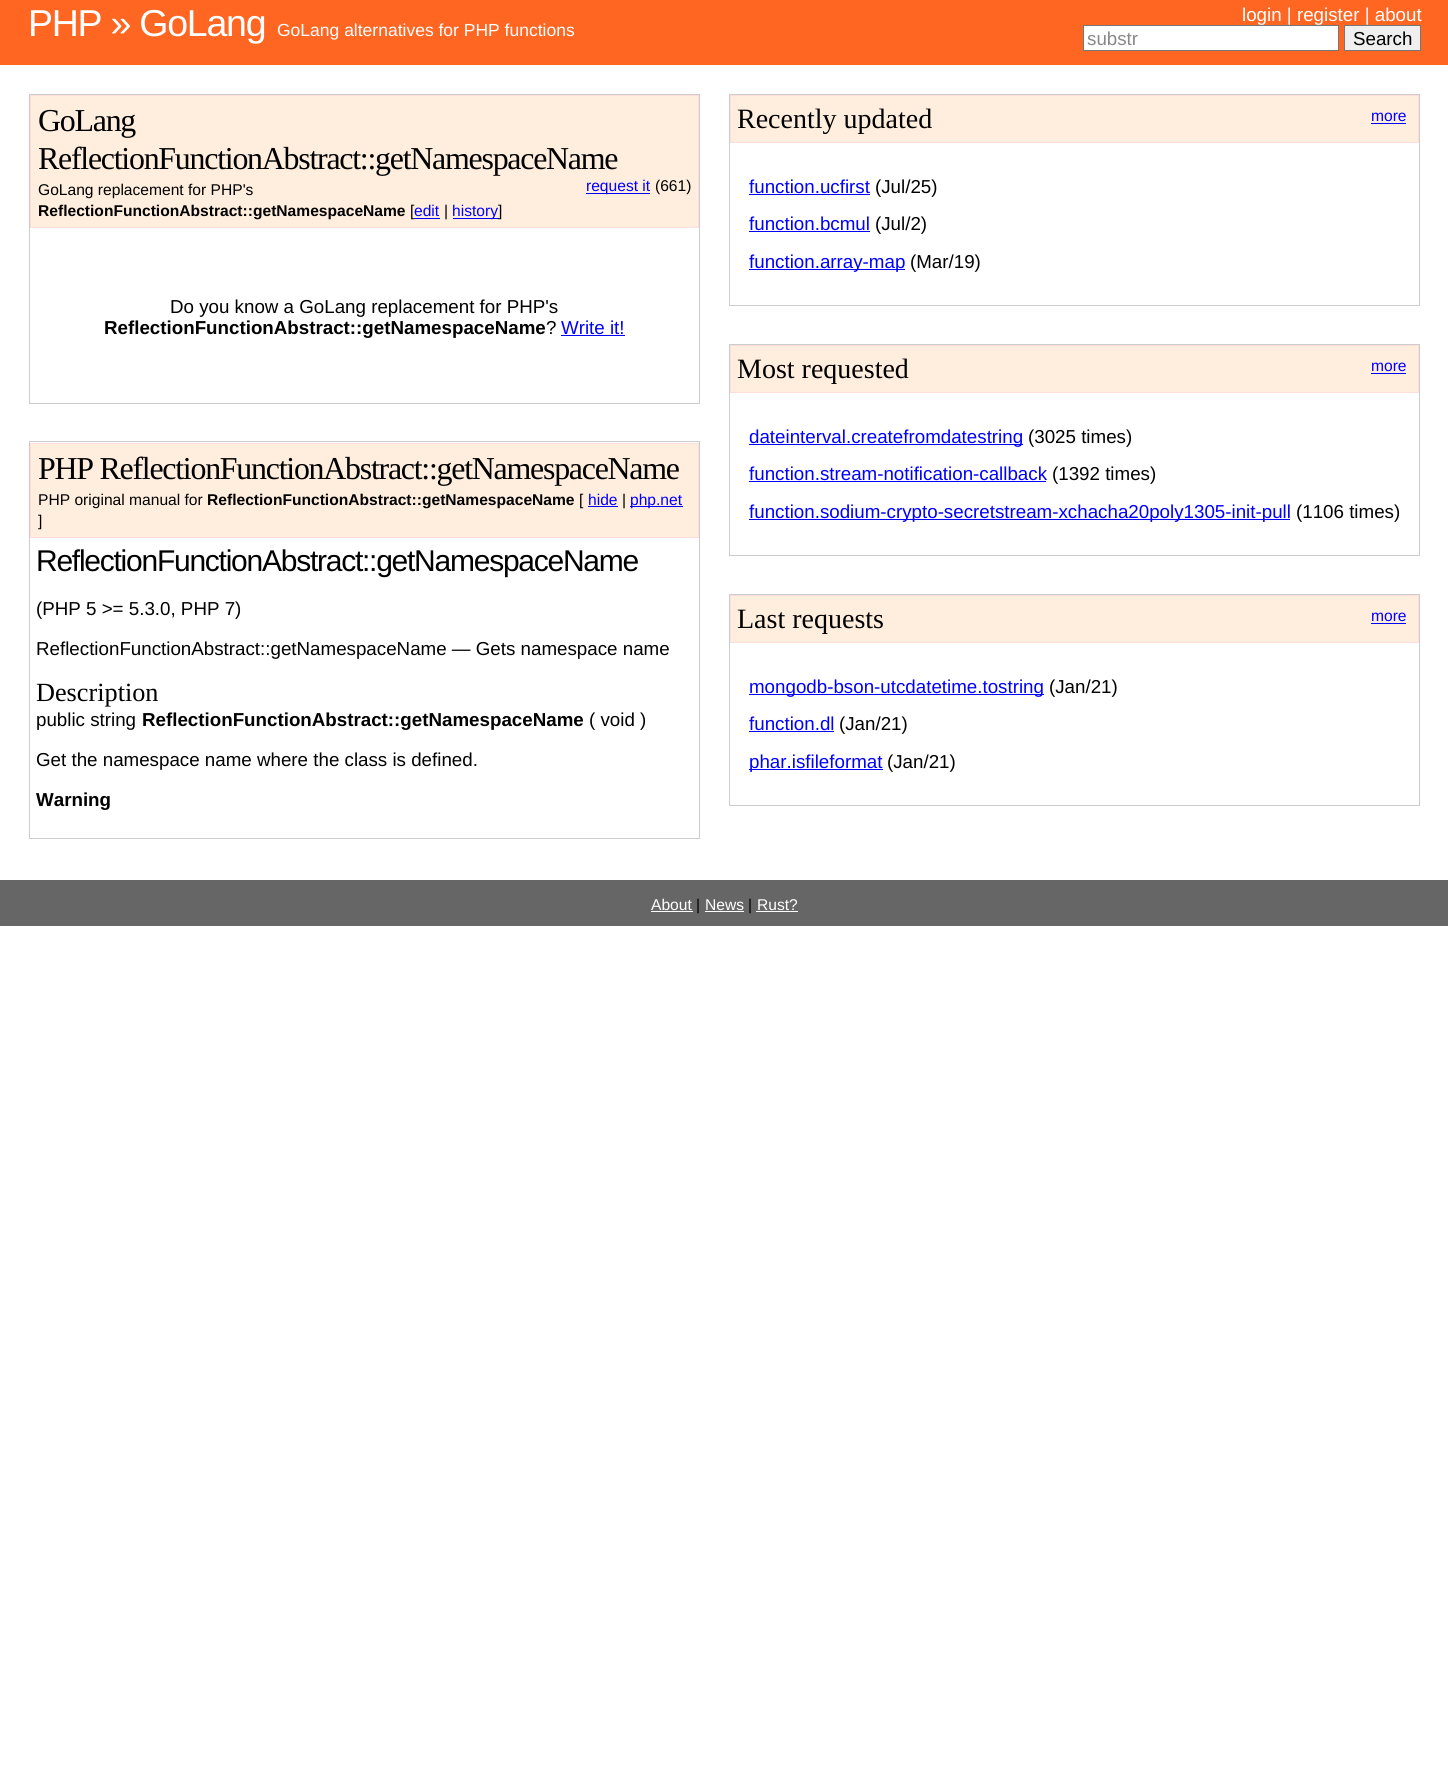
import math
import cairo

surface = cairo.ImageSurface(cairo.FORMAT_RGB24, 1448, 1773)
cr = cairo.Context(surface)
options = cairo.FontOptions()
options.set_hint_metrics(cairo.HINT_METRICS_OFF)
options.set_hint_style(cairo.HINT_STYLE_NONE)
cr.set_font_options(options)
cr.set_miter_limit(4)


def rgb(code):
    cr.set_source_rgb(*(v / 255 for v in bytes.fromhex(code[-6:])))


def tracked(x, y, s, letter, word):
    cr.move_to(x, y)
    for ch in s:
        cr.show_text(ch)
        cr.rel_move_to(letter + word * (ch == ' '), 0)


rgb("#ffffff")
cr.paint()
rgb("#ff6622")
cr.rectangle(0, 0, 1448, 65)
cr.fill()
rgb("#ffffff")
cr.rectangle(1083.5, 25.5, 255, 25)
cr.fill_preserve()
rgb("#777777")
cr.set_line_width(1)
cr.stroke()
rgb("#efefef")
cr.rectangle(1344.5, 25.5, 76, 25)
cr.fill_preserve()
rgb("#777777")
cr.stroke()
cr.rectangle(29.5, 94.5, 670, 309)
rgb("#cccccc")
cr.stroke()
rgb("#ffeedd")
cr.rectangle(30.5, 95.5, 668, 132)
cr.fill_preserve()
rgb("#ffdddd")
cr.stroke()
for x, y, w, h, color in [
    (586, 193, 64, 1, "#0000ff"),
    (453, 218, 46, 1, "#0000ff"),
    (561, 335, 64, 1, "#0000ff"),
]:
    rgb(color)
    cr.rectangle(x, y, w, h)
    cr.fill()
cr.rectangle(29.5, 441.5, 670, 397)
rgb("#cccccc")
cr.stroke()
rgb("#ffeedd")
cr.rectangle(30.5, 443.5, 668, 94)
cr.fill_preserve()
rgb("#ffdddd")
cr.stroke()
rgb("#0000ff")
cr.rectangle(588, 506, 30, 1)
cr.fill()
cr.rectangle(630, 506, 53, 1)
cr.fill()
cr.rectangle(729.5, 94.5, 690, 211)
rgb("#cccccc")
cr.stroke()
rgb("#ffeedd")
cr.rectangle(730.5, 95.5, 688, 47)
cr.fill_preserve()
rgb("#ffdddd")
cr.stroke()
for x, y, w, h, color in [
    (1371, 123, 35, 1, "#0000ff"),
    (749, 194, 121, 1, "#0000ff"),
    (749, 231, 121, 1, "#0000ff"),
    (749, 269, 156, 1, "#0000ff"),
]:
    rgb(color)
    cr.rectangle(x, y, w, h)
    cr.fill()
cr.rectangle(729.5, 344.5, 690, 211)
rgb("#cccccc")
cr.stroke()
rgb("#ffeedd")
cr.rectangle(730.5, 345.5, 688, 47)
cr.fill_preserve()
rgb("#ffdddd")
cr.stroke()
for x, y, w, h, color in [
    (1371, 373, 35, 1, "#0000ff"),
    (749, 444, 274, 1, "#0000ff"),
    (749, 481, 297, 1, "#0000ff"),
    (749, 519, 541, 1, "#0000ff"),
]:
    rgb(color)
    cr.rectangle(x, y, w, h)
    cr.fill()
cr.rectangle(729.5, 594.5, 690, 211)
rgb("#cccccc")
cr.stroke()
rgb("#ffeedd")
cr.rectangle(730.5, 595.5, 688, 47)
cr.fill_preserve()
rgb("#ffdddd")
cr.stroke()
for x, y, w, h, color in [
    (1371, 623, 35, 1, "#0000ff"),
    (749, 694, 295, 1, "#0000ff"),
    (749, 731, 85, 1, "#0000ff"),
    (749, 769, 134, 1, "#0000ff"),
    (0, 880, 1448, 46, "#666666"),
    (651, 911, 42, 1, "#ffffff"),
    (705, 911, 39, 1, "#ffffff"),
    (756, 911, 42, 1, "#ffffff"),
]:
    rgb(color)
    cr.rectangle(x, y, w, h)
    cr.fill()
cr.select_font_face("Liberation Sans")
cr.set_font_size(37.5)
tracked(28, 36, "PHP » GoLang", -1.25, 0)
cr.set_font_size(17.5)
cr.move_to(277, 36)
cr.show_text("GoLang alternatives for PHP functions")
cr.set_font_size(18.75)
cr.move_to(1242, 21)
cr.show_text("login | register | about")
rgb("#888888")
cr.move_to(1087, 45)
cr.show_text("substr")
rgb("#000000")
cr.move_to(1353, 45)
cr.show_text("Search")
cr.select_font_face("Liberation Serif")
cr.set_font_size(31.9)
tracked(38, 131, "GoLang", -1.25, 0)
tracked(38, 169, "ReflectionFunctionAbstract::getNamespaceName", -1.25, 0)
cr.select_font_face("Liberation Sans")
cr.set_font_size(15.6)
cr.move_to(38, 195)
cr.show_text("GoLang replacement for PHP's")
rgb("#0000ff")
cr.move_to(586, 191)
cr.show_text("request it")
rgb("#000000")
cr.move_to(655, 191)
cr.show_text("(661)")
cr.select_font_face("Liberation Sans", cairo.FONT_SLANT_NORMAL, cairo.FONT_WEIGHT_BOLD)
cr.move_to(38, 216)
cr.show_text("ReflectionFunctionAbstract::getNamespaceName")
cr.select_font_face("Liberation Sans")
cr.move_to(410, 216)
cr.show_text("[")
rgb("#0000ff")
cr.move_to(414, 216)
cr.show_text("edit")
cr.rectangle(414, 218, 26, 1)
cr.fill()
rgb("#000000")
cr.move_to(444, 216)
cr.show_text("|")
rgb("#0000ff")
cr.move_to(452, 216)
cr.show_text("history")
rgb("#000000")
cr.move_to(498, 216)
cr.show_text("]")
cr.set_font_size(18.75)
cr.move_to(170, 313)
cr.show_text("Do you know a GoLang replacement for PHP's")
cr.select_font_face("Liberation Sans", cairo.FONT_SLANT_NORMAL, cairo.FONT_WEIGHT_BOLD)
cr.move_to(104, 334)
cr.show_text("ReflectionFunctionAbstract::getNamespaceName")
cr.select_font_face("Liberation Sans")
cr.move_to(546, 334)
cr.show_text("?")
rgb("#0000ff")
cr.move_to(561, 334)
cr.show_text("Write it!")
cr.select_font_face("Liberation Serif")
cr.set_font_size(31.9)
rgb("#000000")
tracked(38, 479, "PHP ReflectionFunctionAbstract::getNamespaceName", -1.25, 0)
cr.select_font_face("Liberation Sans")
cr.set_font_size(15.6)
cr.move_to(38, 505)
cr.show_text("PHP original manual for")
cr.select_font_face("Liberation Sans", cairo.FONT_SLANT_NORMAL, cairo.FONT_WEIGHT_BOLD)
cr.move_to(207, 505)
cr.show_text("ReflectionFunctionAbstract::getNamespaceName")
cr.select_font_face("Liberation Sans")
cr.move_to(579, 505)
cr.show_text("[")
rgb("#0000ff")
cr.move_to(588, 505)
cr.show_text("hide")
rgb("#000000")
cr.move_to(622, 505)
cr.show_text("|")
rgb("#0000ff")
cr.move_to(630, 505)
cr.show_text("php.net")
rgb("#000000")
cr.move_to(38, 526)
cr.show_text("]")
cr.set_font_size(30)
tracked(36, 571, "ReflectionFunctionAbstract::getNamespaceName", -1.25, 0)
cr.set_font_size(18.75)
cr.move_to(36, 615)
cr.show_text("(PHP 5 >= 5.3.0, PHP 7)")
cr.move_to(36, 655)
cr.show_text("ReflectionFunctionAbstract::getNamespaceName — Gets namespace name")
cr.select_font_face("Liberation Serif")
cr.set_font_size(26.25)
cr.move_to(36, 701)
cr.show_text("Description")
cr.select_font_face("Liberation Sans")
cr.set_font_size(18.75)
cr.move_to(36, 726)
cr.show_text("public string")
cr.select_font_face("Liberation Sans", cairo.FONT_SLANT_NORMAL, cairo.FONT_WEIGHT_BOLD)
cr.move_to(142, 726)
cr.show_text("ReflectionFunctionAbstract::getNamespaceName")
cr.select_font_face("Liberation Sans")
cr.move_to(589, 726)
cr.show_text("( void )")
cr.move_to(36, 766)
cr.show_text("Get the namespace name where the class is defined.")
cr.select_font_face("Liberation Sans", cairo.FONT_SLANT_NORMAL, cairo.FONT_WEIGHT_BOLD)
cr.move_to(36, 806)
cr.show_text("Warning")
cr.select_font_face("Liberation Serif")
cr.set_font_size(28)
cr.move_to(737, 128)
cr.show_text("Recently updated")
cr.select_font_face("Liberation Sans")
cr.set_font_size(15.6)
rgb("#0000ff")
cr.move_to(1371, 121)
cr.show_text("more")
cr.set_font_size(18.75)
cr.move_to(749, 193)
cr.show_text("function.ucfirst")
rgb("#000000")
cr.move_to(875, 193)
cr.show_text("(Jul/25)")
rgb("#0000ff")
cr.move_to(749, 230)
cr.show_text("function.bcmul")
rgb("#000000")
cr.move_to(875, 230)
cr.show_text("(Jul/2)")
rgb("#0000ff")
cr.move_to(749, 268)
cr.show_text("function.array-map")
rgb("#000000")
cr.move_to(910, 268)
cr.show_text("(Mar/19)")
cr.select_font_face("Liberation Serif")
cr.set_font_size(28)
cr.move_to(737, 378)
cr.show_text("Most requested")
cr.select_font_face("Liberation Sans")
cr.set_font_size(15.6)
rgb("#0000ff")
cr.move_to(1371, 371)
cr.show_text("more")
cr.set_font_size(18.75)
cr.move_to(749, 443)
cr.show_text("dateinterval.createfromdatestring")
rgb("#000000")
cr.move_to(1028, 443)
cr.show_text("(3025 times)")
rgb("#0000ff")
cr.move_to(749, 480)
cr.show_text("function.stream-notification-callback")
rgb("#000000")
cr.move_to(1052, 480)
cr.show_text("(1392 times)")
rgb("#0000ff")
cr.move_to(749, 518)
cr.show_text("function.sodium-crypto-secretstream-xchacha20poly1305-init-pull")
rgb("#000000")
cr.move_to(1296, 518)
cr.show_text("(1106 times)")
cr.select_font_face("Liberation Serif")
cr.set_font_size(28)
cr.move_to(737, 628)
cr.show_text("Last requests")
cr.select_font_face("Liberation Sans")
cr.set_font_size(15.6)
rgb("#0000ff")
cr.move_to(1371, 621)
cr.show_text("more")
cr.set_font_size(18.75)
cr.move_to(749, 693)
cr.show_text("mongodb-bson-utcdatetime.tostring")
rgb("#000000")
cr.move_to(1049, 693)
cr.show_text("(Jan/21)")
rgb("#0000ff")
cr.move_to(749, 730)
cr.show_text("function.dl")
rgb("#000000")
cr.move_to(839, 730)
cr.show_text("(Jan/21)")
rgb("#0000ff")
cr.move_to(749, 768)
cr.show_text("phar.isfileformat")
rgb("#000000")
cr.move_to(887, 768)
cr.show_text("(Jan/21)")
cr.set_font_size(15.6)
rgb("#ffffff")
cr.move_to(651, 910)
cr.show_text("About")
rgb("#000000")
cr.move_to(696, 910)
cr.show_text("|")
rgb("#ffffff")
cr.move_to(705, 910)
cr.show_text("News")
rgb("#000000")
cr.move_to(748, 910)
cr.show_text("|")
rgb("#ffffff")
cr.move_to(757, 910)
cr.show_text("Rust?")
surface.write_to_png("page.png")
